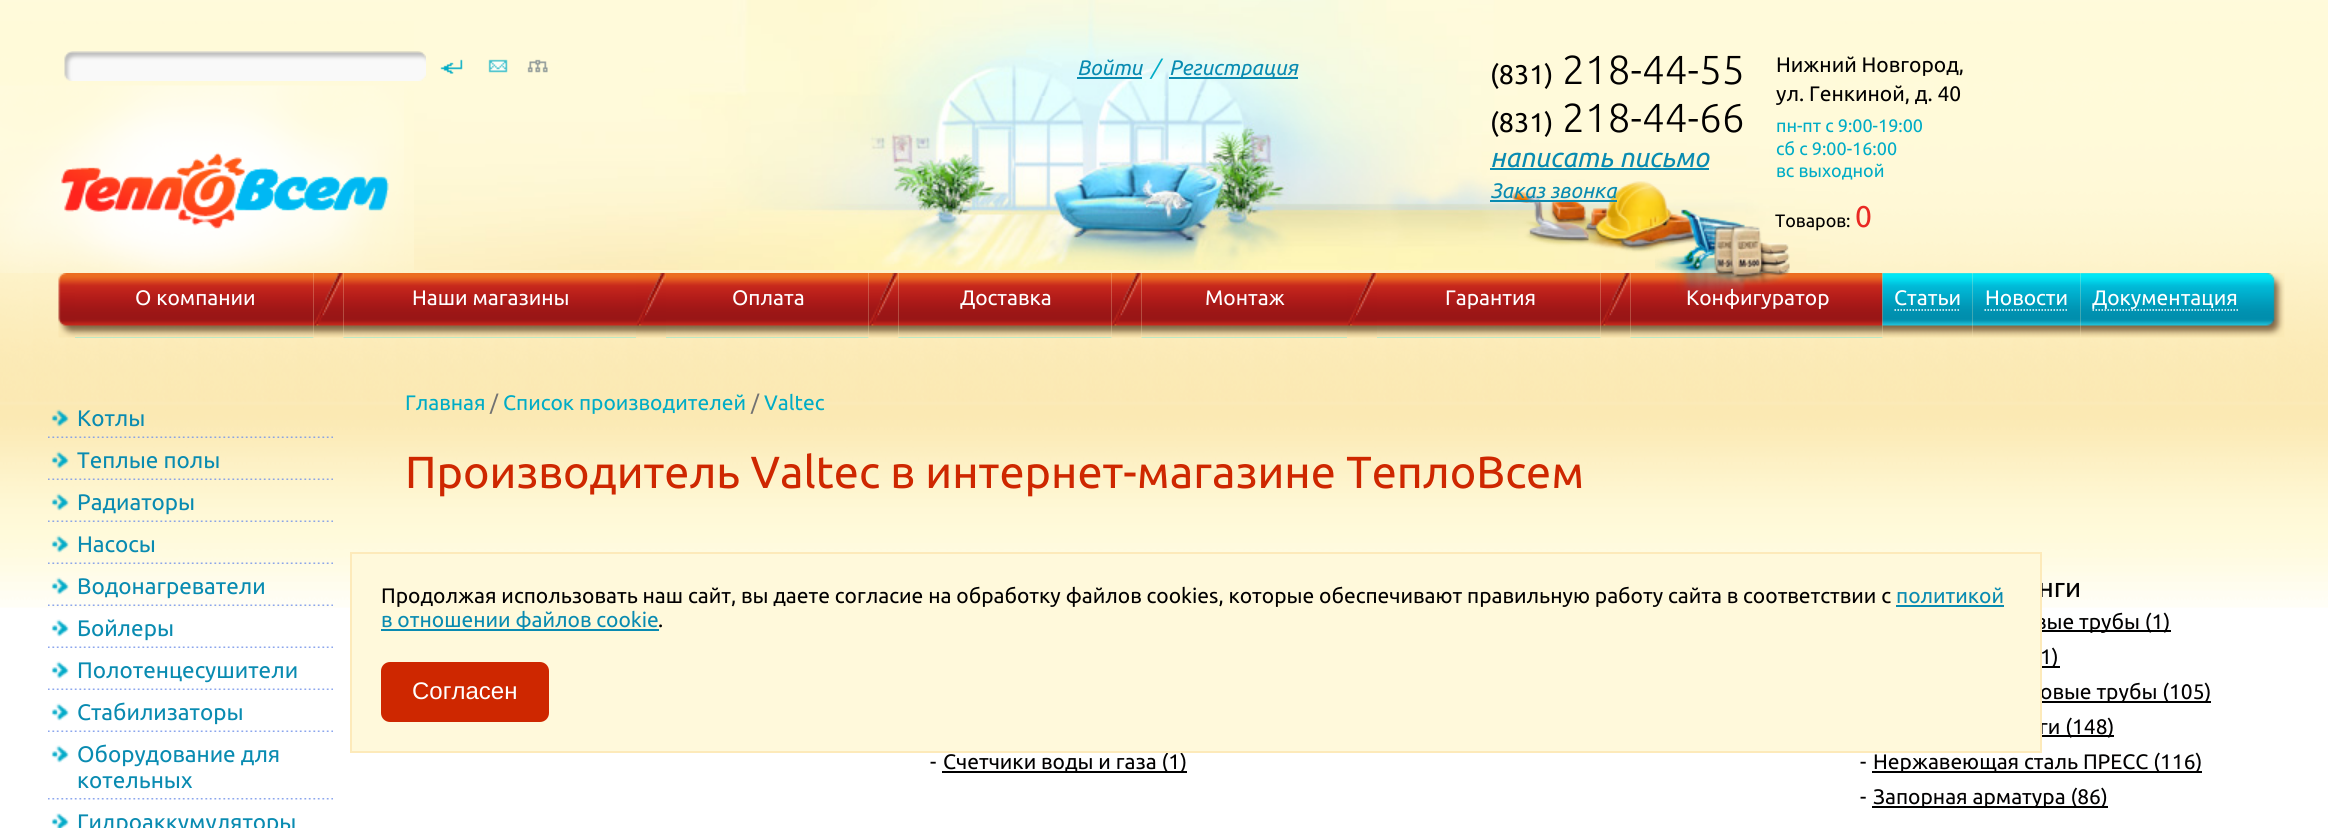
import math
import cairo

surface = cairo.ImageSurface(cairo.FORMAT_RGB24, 2328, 828)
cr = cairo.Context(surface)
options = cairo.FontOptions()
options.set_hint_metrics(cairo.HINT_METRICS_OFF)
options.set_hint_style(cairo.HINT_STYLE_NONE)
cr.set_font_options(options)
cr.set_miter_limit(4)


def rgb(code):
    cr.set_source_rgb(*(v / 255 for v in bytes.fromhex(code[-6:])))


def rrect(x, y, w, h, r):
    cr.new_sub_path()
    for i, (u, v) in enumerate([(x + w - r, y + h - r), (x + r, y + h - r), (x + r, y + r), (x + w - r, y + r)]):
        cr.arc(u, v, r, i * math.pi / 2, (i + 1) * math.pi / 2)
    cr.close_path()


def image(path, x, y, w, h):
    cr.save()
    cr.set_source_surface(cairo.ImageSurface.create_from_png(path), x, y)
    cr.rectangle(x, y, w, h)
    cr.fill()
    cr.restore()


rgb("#ffffff")
cr.paint()
image("img/1.png", 0, 0, 2328, 608)
image("img/2.png", 414, 0, 1416, 270)
image("img/3.png", 64, 51, 362, 30)
image("img/4.png", 440, 59, 23, 15)
image("img/5.png", 488, 59, 20, 14)
image("img/6.png", 527, 59, 21, 14)
image("img/7.png", 0, 85, 404, 188)
for x, y, w, h, color in [
    (1077, 77, 65, 2, "#098bb1"),
    (1169, 77, 129, 2, "#098bb1"),
    (1490, 168, 219, 2, "#098bb1"),
]:
    rgb(color)
    cr.rectangle(x, y, w, h)
    cr.fill()
image("img/8.png", 1512, 181, 187, 72)
cr.rectangle(1490, 200, 127, 2)
cr.fill()
image("img/10.png", 58, 273, 17, 65)
image("img/11.png", 75, 273, 239, 65)
image("img/12.png", 313, 273, 31, 65)
image("img/13.png", 343, 273, 293, 65)
image("img/14.png", 636, 273, 30, 65)
image("img/15.png", 666, 273, 203, 65)
image("img/16.png", 868, 273, 31, 65)
image("img/17.png", 898, 273, 214, 65)
image("img/18.png", 1111, 273, 31, 65)
image("img/19.png", 1141, 273, 206, 65)
image("img/20.png", 1347, 273, 30, 65)
image("img/21.png", 1377, 273, 224, 65)
image("img/22.png", 1600, 273, 31, 65)
image("img/23.png", 1630, 273, 253, 65)
image("img/24.png", 1882, 273, 91, 65)
cr.new_path()
cr.move_to(1894.5, 310)
cr.line_to(1960.5, 310)
rgb("#ffffff")
cr.set_line_width(1.5)
cr.set_dash([1.5, 1.5])
cr.stroke()
image("img/25.png", 1972, 273, 109, 65)
cr.new_path()
cr.move_to(1984.5, 310)
cr.line_to(2068.5, 310)
cr.stroke()
image("img/26.png", 2080, 273, 170, 65)
cr.new_path()
cr.move_to(2092.5, 310)
cr.line_to(2238, 310)
cr.stroke()
image("img/27.png", 2250, 273, 35, 65)
image("img/28.png", 48, 436, 285, 2)
image("img/29.png", 51, 409, 18, 18)
image("img/30.png", 48, 478, 285, 2)
image("img/31.png", 51, 451, 18, 18)
image("img/32.png", 48, 520, 285, 2)
image("img/33.png", 51, 493, 18, 18)
image("img/34.png", 48, 562, 285, 2)
image("img/35.png", 51, 535, 18, 18)
image("img/36.png", 48, 604, 285, 2)
image("img/37.png", 51, 577, 18, 18)
image("img/38.png", 48, 646, 285, 2)
image("img/39.png", 51, 619, 18, 18)
image("img/38.png", 48, 688, 285, 2)
image("img/39.png", 51, 661, 18, 18)
image("img/38.png", 48, 730, 285, 2)
image("img/39.png", 51, 703, 18, 18)
image("img/40.png", 48, 798, 285, 2)
image("img/39.png", 51, 745, 18, 18)
image("img/41.png", 51, 813, 18, 15)
for x, y, w, h, color in [
    (942, 771, 245, 2, "#000000"),
    (2042, 630, 129, 2, "#000000"),
    (2042, 666, 18, 2, "#000000"),
    (2042, 701, 169, 2, "#000000"),
    (2042, 735, 72, 2, "#000000"),
    (1872, 771, 330, 2, "#000000"),
    (1872, 806, 236, 2, "#000000"),
]:
    rgb(color)
    cr.rectangle(x, y, w, h)
    cr.fill()
cr.select_font_face("Ubuntu", cairo.FONT_SLANT_ITALIC)
cr.set_font_size(21)
rgb("#098bb1")
cr.move_to(1077, 75)
cr.show_text("Войти")
rgb("#00acc6")
cr.move_to(1151, 75)
cr.show_text("/")
rgb("#098bb1")
cr.move_to(1169, 75)
cr.show_text("Регистрация")
cr.select_font_face("Ubuntu")
cr.set_font_size(27)
rgb("#010000")
cr.move_to(1490, 84)
cr.show_text("(831)")
cr.select_font_face("Ubuntu Light")
cr.set_font_size(40.5)
cr.move_to(1562, 84)
cr.show_text("218-44-55")
cr.select_font_face("Ubuntu")
cr.set_font_size(27)
cr.move_to(1490, 132)
cr.show_text("(831)")
cr.select_font_face("Ubuntu Light")
cr.set_font_size(40.5)
cr.move_to(1562, 132)
cr.show_text("218-44-66")
cr.select_font_face("Ubuntu", cairo.FONT_SLANT_ITALIC)
cr.set_font_size(27)
rgb("#098bb1")
cr.move_to(1490, 167)
cr.show_text("написать письмо")
cr.set_font_size(21)
cr.move_to(1490, 198)
cr.show_text("Заказ звонка")
cr.select_font_face("Ubuntu")
rgb("#010000")
cr.move_to(1776, 72)
cr.show_text("Нижний Новгород,")
cr.move_to(1776, 101)
cr.show_text("ул. Генкиной, д. 40")
cr.set_font_size(18)
rgb("#00acc6")
for x, y, s in [
    (1776, 132, "пн-пт с 9:00-19:00"),
    (1776, 155, "сб с 9:00-16:00"),
    (1776, 177, "вс выходной"),
]:
    cr.move_to(x, y)
    cr.show_text(s)
rgb("#010000")
cr.move_to(1775, 227)
cr.show_text("Товаров:")
cr.set_font_size(30)
rgb("#e92923")
cr.move_to(1855, 227)
cr.show_text("0")
cr.set_font_size(21)
rgb("#ffffff")
for x, y, s in [
    (135, 305, "О компании"),
    (412, 305, "Наши магазины"),
    (732, 305, "Оплата"),
    (960, 305, "Доставка"),
    (1205, 305, "Монтаж"),
    (1445, 305, "Гарантия"),
    (1686, 305, "Конфигуратор"),
]:
    cr.move_to(x, y)
    cr.show_text(s)
image("img/9.png", 1655, 209, 135, 87)
for x, y, s in [
    (1894, 305, "Статьи"),
    (1985, 305, "Новости"),
    (2092, 305, "Документация"),
]:
    cr.move_to(x, y)
    cr.show_text(s)
cr.set_font_size(22.5)
rgb("#098bb1")
for x, y, s in [
    (77, 426, "Котлы"),
    (77, 468, "Теплые полы"),
    (77, 510, "Радиаторы"),
    (77, 552, "Насосы"),
    (77, 594, "Водонагреватели"),
    (77, 636, "Бойлеры"),
    (77, 678, "Полотенцесушители"),
    (77, 720, "Стабилизаторы"),
    (77, 762, "Оборудование для"),
    (77, 788, "котельных"),
    (77, 830, "Гидроаккумуляторы"),
]:
    cr.move_to(x, y)
    cr.show_text(s)
cr.set_font_size(21)
rgb("#00acc6")
cr.move_to(405, 410)
cr.show_text("Главная")
rgb("#727272")
cr.move_to(490, 410)
cr.show_text("/")
rgb("#00acc6")
cr.move_to(503, 410)
cr.show_text("Список производителей")
rgb("#727272")
cr.move_to(751, 410)
cr.show_text("/")
rgb("#00acc6")
cr.move_to(764, 410)
cr.show_text("Valtec")
cr.set_font_size(45)
rgb("#ce2700")
cr.move_to(405, 488)
cr.show_text("Производитель Valtec в интернет-магазине ТеплоВсем")
cr.set_font_size(21)
rgb("#010000")
cr.move_to(930, 769)
cr.show_text("-")
cr.move_to(943, 769)
cr.show_text("Счетчики воды и газа (1)")
cr.set_font_size(27)
cr.move_to(2038, 597)
cr.show_text("нги")
cr.set_font_size(21)
for x, y, s in [
    (2035, 629, "вые трубы (1)"),
    (2040, 664, "1)"),
    (2040, 699, "овые трубы (105)"),
    (2039, 734, "ги (148)"),
    (1860, 769, "-"),
    (1873, 769, "Нержавеющая сталь ПРЕСС (116)"),
    (1860, 804, "-"),
    (1873, 804, "Запорная арматура (86)"),
]:
    cr.move_to(x, y)
    cr.show_text(s)
rgb("#fff9db")
cr.rectangle(351, 553, 1690, 199)
cr.fill_preserve()
rgb("#fdeaba")
cr.set_line_width(2)
cr.set_dash([])
cr.stroke()
rgb("#010000")
cr.move_to(381, 603)
cr.show_text("Продолжая использовать наш сайт, вы даете согласие на обработку файлов cookies, которые обеспечивают правильную работу сайта в соответствии с")
rgb("#098bb1")
cr.move_to(1896, 603)
cr.show_text("политикой")
cr.rectangle(1896, 605, 108, 2)
cr.fill()
cr.rectangle(381, 629, 278, 2)
cr.fill()
cr.move_to(381, 627)
cr.show_text("в отношении файлов cookie")
rgb("#010000")
cr.move_to(658, 627)
cr.show_text(".")
rgb("#ce2700")
rrect(382, 663, 166, 58, 8)
cr.fill_preserve()
cr.stroke()
cr.select_font_face("Liberation Sans")
cr.set_font_size(24)
rgb("#ffffff")
cr.move_to(412, 699)
cr.show_text("Согласен")
surface.write_to_png("page.png")
